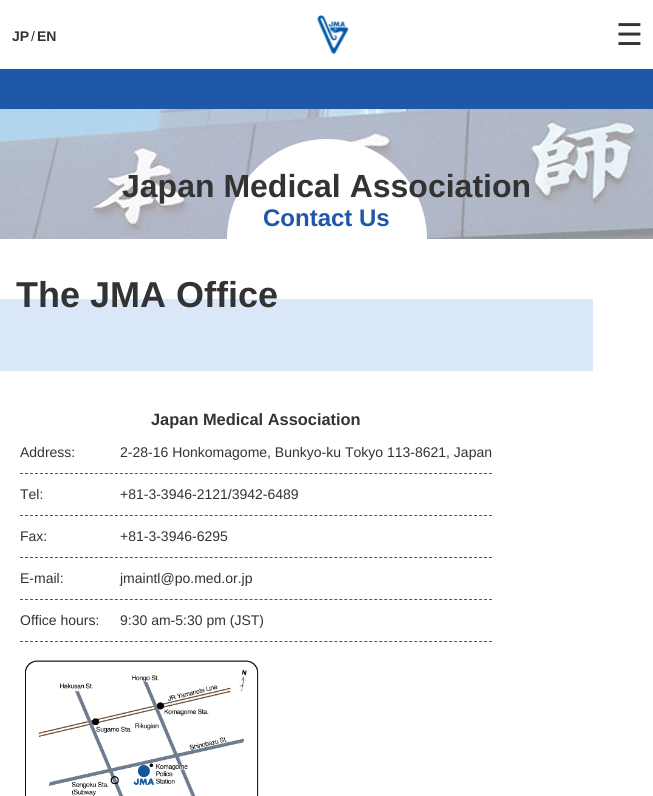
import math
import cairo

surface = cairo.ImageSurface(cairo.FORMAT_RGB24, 653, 796)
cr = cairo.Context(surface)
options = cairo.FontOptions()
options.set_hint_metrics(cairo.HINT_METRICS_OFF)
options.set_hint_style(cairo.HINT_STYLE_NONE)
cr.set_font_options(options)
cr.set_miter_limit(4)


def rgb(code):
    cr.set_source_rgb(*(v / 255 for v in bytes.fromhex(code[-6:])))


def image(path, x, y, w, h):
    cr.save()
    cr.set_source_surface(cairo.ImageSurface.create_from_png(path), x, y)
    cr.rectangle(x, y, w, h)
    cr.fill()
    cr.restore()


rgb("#ffffff")
cr.paint()
image("img/1.png", 317, 15, 32, 40)
rgb("#1e58a6")
cr.rectangle(0, 69, 653, 40)
cr.fill()
image("img/2.png", 0, 109, 653, 130)
rgb("#ffffff")
cr.new_path()
cr.move_to(327, 139)
cr.curve_to(382, 139, 427, 184, 427, 239)
cr.line_to(227, 239)
cr.curve_to(227, 184, 272, 139, 327, 139)
cr.close_path()
cr.fill()
rgb("#d9e7f9")
cr.rectangle(0, 299, 593, 72)
cr.fill()
cr.new_path()
cr.move_to(20, 473.5)
cr.line_to(492, 473.5)
rgb("#555555")
cr.set_line_width(1)
cr.set_dash([3, 1.99])
cr.stroke()
cr.new_path()
cr.move_to(20, 515.5)
cr.line_to(492, 515.5)
cr.stroke()
cr.new_path()
cr.move_to(20, 557.5)
cr.line_to(492, 557.5)
cr.stroke()
cr.new_path()
cr.move_to(20, 599.5)
cr.line_to(492, 599.5)
cr.stroke()
cr.new_path()
cr.move_to(20, 641.5)
cr.line_to(492, 641.5)
cr.stroke()
image("img/3.png", 25, 660, 234, 136)
cr.select_font_face("Liberation Sans", cairo.FONT_SLANT_NORMAL, cairo.FONT_WEIGHT_BOLD)
cr.set_font_size(14)
rgb("#333333")
cr.move_to(12, 41)
cr.show_text("JP")
cr.select_font_face("Liberation Sans")
cr.move_to(31, 41)
cr.show_text("/")
cr.select_font_face("Liberation Sans", cairo.FONT_SLANT_NORMAL, cairo.FONT_WEIGHT_BOLD)
cr.move_to(37, 41)
cr.show_text("EN")
cr.select_font_face("DejaVu Sans")
cr.set_font_size(30)
cr.move_to(616, 45)
cr.show_text("☰")
cr.select_font_face("Liberation Sans", cairo.FONT_SLANT_NORMAL, cairo.FONT_WEIGHT_BOLD)
cr.set_font_size(32)
cr.move_to(122, 197)
cr.show_text("Japan Medical Association")
cr.set_font_size(24)
rgb("#1e58a6")
cr.move_to(263, 226)
cr.show_text("Contact Us")
cr.set_font_size(36)
rgb("#333333")
cr.move_to(16, 307)
cr.show_text("The JMA Office")
cr.set_font_size(16.4)
cr.move_to(151, 425)
cr.show_text("Japan Medical Association")
cr.select_font_face("Liberation Sans")
cr.set_font_size(14)
for x, y, s in [
    (20, 457, "Address:"),
    (120, 457, "2-28-16 Honkomagome, Bunkyo-ku Tokyo 113-8621, Japan"),
    (20, 499, "Tel:"),
    (120, 499, "+81-3-3946-2121/3942-6489"),
    (20, 541, "Fax:"),
    (120, 541, "+81-3-3946-6295"),
    (20, 583, "E-mail:"),
    (120, 583, "jmaintl@po.med.or.jp"),
    (20, 625, "Office hours:"),
    (120, 625, "9:30 am-5:30 pm (JST)"),
]:
    cr.move_to(x, y)
    cr.show_text(s)
surface.write_to_png("page.png")
